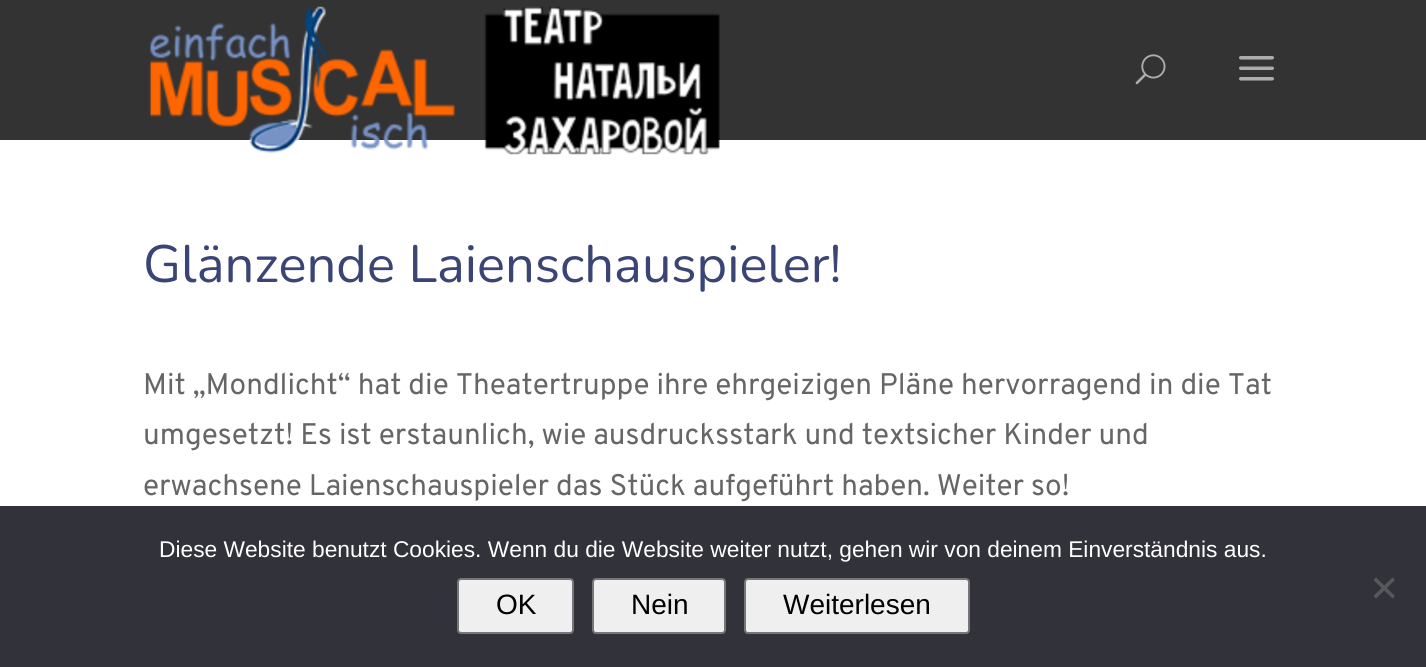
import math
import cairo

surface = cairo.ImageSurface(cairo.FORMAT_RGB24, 1426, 667)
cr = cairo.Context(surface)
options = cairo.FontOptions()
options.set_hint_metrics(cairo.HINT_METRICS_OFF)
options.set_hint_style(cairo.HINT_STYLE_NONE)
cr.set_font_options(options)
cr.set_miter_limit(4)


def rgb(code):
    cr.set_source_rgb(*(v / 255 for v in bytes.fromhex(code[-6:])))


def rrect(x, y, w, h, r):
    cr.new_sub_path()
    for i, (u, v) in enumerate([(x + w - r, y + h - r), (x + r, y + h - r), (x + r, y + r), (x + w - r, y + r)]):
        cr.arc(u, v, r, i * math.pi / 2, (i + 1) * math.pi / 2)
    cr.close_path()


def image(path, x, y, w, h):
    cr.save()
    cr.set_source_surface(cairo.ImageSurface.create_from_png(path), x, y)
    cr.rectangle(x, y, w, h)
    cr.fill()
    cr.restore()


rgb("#ffffff")
cr.paint()
rgb("#333333")
cr.rectangle(0, 0, 1426, 140)
cr.fill()
image("img/1.png", 149, 6, 571, 149)
image("img/2.png", 1135, 54, 31, 31)
image("img/3.png", 1239, 56, 35, 25)
rgb("#32323a")
cr.rectangle(0, 506, 1426, 161)
cr.fill()
rgb("#59595d")
cr.new_path()
cr.move_to(1392.5, 577.5)
cr.line_to(1395, 580)
cr.line_to(1376, 598.5)
cr.line_to(1373.5, 596)
cr.close_path()
cr.fill()
cr.new_path()
cr.move_to(1373.5, 580)
cr.line_to(1376, 577.5)
cr.line_to(1395, 596)
cr.line_to(1392.5, 598.5)
cr.close_path()
cr.fill()
rgb("#efefef")
rrect(458, 579, 115, 54, 3)
cr.fill_preserve()
rgb("#767676")
cr.stroke()
rgb("#efefef")
rrect(593, 579, 132, 54, 3)
cr.fill_preserve()
rgb("#767676")
cr.stroke()
rgb("#efefef")
rrect(745, 579, 224, 54, 3)
cr.fill_preserve()
rgb("#767676")
cr.stroke()
cr.select_font_face("Nunito ExtraLight")
cr.set_font_size(52.5)
rgb("#3a4475")
cr.move_to(143, 282)
cr.show_text("Glänzende Laienschauspieler!")
cr.select_font_face("Overpass")
cr.set_font_size(29.75)
rgb("#666666")
for x, y, s in [
    (143, 394, "Mit „Mondlicht“ hat die Theatertruppe ihre ehrgeizigen Pläne hervorragend in die Tat"),
    (143, 444, "umgesetzt! Es ist erstaunlich, wie ausdrucksstark und textsicher Kinder und"),
    (143, 495, "erwachsene Laienschauspieler das Stück aufgeführt haben. Weiter so!"),
]:
    cr.move_to(x, y)
    cr.show_text(s)
cr.select_font_face("Liberation Sans")
cr.set_font_size(22.75)
rgb("#ffffff")
cr.move_to(159, 557)
cr.show_text("Diese Website benutzt Cookies. Wenn du die Website weiter nutzt, gehen wir von deinem Einverständnis aus.")
cr.set_font_size(28)
rgb("#000000")
for x, y, s in [
    (496, 614, "OK"),
    (631, 614, "Nein"),
    (783, 614, "Weiterlesen"),
]:
    cr.move_to(x, y)
    cr.show_text(s)
surface.write_to_png("page.png")
